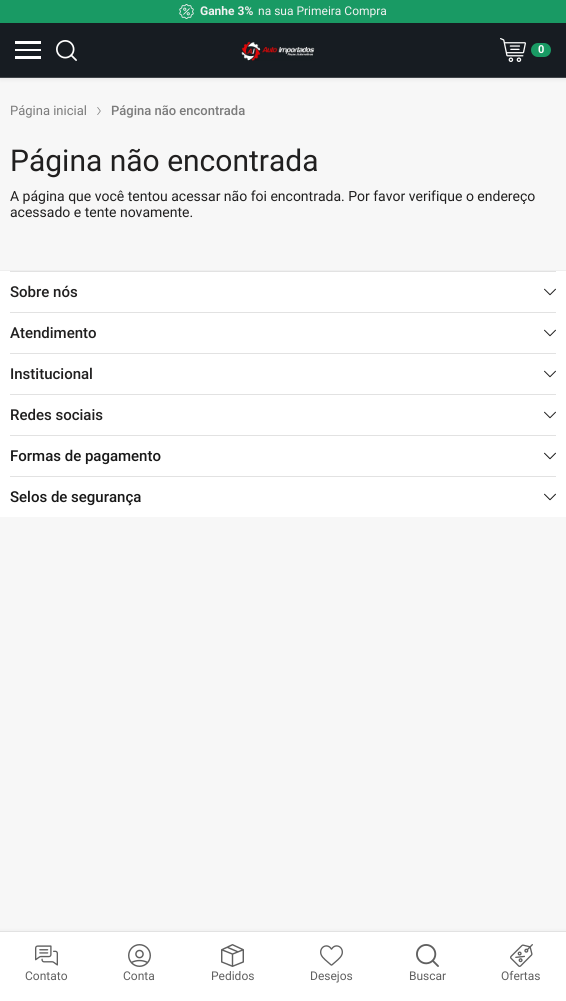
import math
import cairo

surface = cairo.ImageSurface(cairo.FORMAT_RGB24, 566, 1001)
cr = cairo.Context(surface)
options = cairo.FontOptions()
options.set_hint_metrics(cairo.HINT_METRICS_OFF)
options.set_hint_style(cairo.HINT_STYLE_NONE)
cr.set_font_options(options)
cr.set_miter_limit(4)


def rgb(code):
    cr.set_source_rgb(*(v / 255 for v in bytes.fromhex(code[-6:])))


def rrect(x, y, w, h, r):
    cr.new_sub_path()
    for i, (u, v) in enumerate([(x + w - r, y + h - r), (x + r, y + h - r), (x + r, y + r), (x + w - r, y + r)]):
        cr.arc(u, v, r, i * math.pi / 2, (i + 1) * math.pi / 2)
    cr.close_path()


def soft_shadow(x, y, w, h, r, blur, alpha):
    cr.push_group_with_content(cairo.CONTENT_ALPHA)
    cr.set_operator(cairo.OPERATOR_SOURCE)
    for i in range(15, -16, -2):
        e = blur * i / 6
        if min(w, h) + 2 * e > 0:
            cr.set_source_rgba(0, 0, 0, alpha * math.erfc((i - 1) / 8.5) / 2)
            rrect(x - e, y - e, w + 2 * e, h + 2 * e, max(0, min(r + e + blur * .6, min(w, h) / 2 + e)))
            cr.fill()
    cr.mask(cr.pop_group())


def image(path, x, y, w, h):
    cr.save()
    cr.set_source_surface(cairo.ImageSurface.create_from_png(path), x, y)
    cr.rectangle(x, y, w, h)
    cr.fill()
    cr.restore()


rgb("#f7f7f7")
cr.paint()
rgb("#199a64")
cr.rectangle(0, 0, 566, 23)
cr.fill()
image("img/1.png", 179, 4, 15, 15)
rgb("#525252")
soft_shadow(0, 24, 566, 55, 0, 2, 0.13)
for x, y, w, h, color in [
    (0, 23, 566, 54, "#171c22"),
    (0, 77, 566, 1, "#404449"),
    (15, 56, 26, 3, "#ffffff"),
    (15, 49, 26, 2, "#ffffff"),
    (15, 41, 26, 3, "#ffffff"),
]:
    rgb(color)
    cr.rectangle(x, y, w, h)
    cr.fill()
image("img/2.png", 56, 40, 21, 21)
image("img/3.png", 241, 41, 74, 20)
image("img/4.png", 500, 38, 26, 24)
rgb("#199a64")
rrect(531, 43, 20, 14, 7)
cr.fill()
image("img/5.png", 97, 107, 4, 8)
for x, y, w, h, color in [
    (0, 270, 566, 1, "#efefef"),
    (0, 271, 566, 246, "#ffffff"),
    (10, 271, 546, 1, "#e2e2e2"),
]:
    rgb(color)
    cr.rectangle(x, y, w, h)
    cr.fill()
image("img/6.png", 544, 288, 12, 8)
cr.rectangle(10, 312, 546, 1)
cr.fill()
image("img/6.png", 544, 329, 12, 8)
cr.rectangle(10, 353, 546, 1)
cr.fill()
image("img/6.png", 544, 370, 12, 8)
cr.rectangle(10, 394, 546, 1)
cr.fill()
image("img/6.png", 544, 411, 12, 8)
cr.rectangle(10, 435, 546, 1)
cr.fill()
image("img/7.png", 544, 452, 12, 8)
cr.rectangle(10, 476, 546, 1)
cr.fill()
image("img/7.png", 544, 493, 12, 8)
rgb("#525252")
soft_shadow(0, 931, 566, 70, 0, 2, 0.08)
rgb("#ffffff")
cr.rectangle(0, 932, 566, 69)
cr.fill()
rgb("#e2e2e2")
cr.rectangle(0, 931, 566, 1)
cr.fill()
image("img/8.png", 35, 945, 23, 21)
image("img/9.png", 128, 944, 23, 23)
image("img/10.png", 221, 944, 23, 23)
image("img/11.png", 320, 945, 23, 21)
image("img/12.png", 416, 944, 23, 23)
image("img/13.png", 510, 944, 23, 23)
cr.select_font_face("Roboto", cairo.FONT_SLANT_NORMAL, cairo.FONT_WEIGHT_BOLD)
cr.set_font_size(12)
rgb("#f1f1f1")
cr.move_to(200, 15)
cr.show_text("Ganhe 3%")
cr.select_font_face("Roboto")
cr.move_to(258, 15)
cr.show_text("na sua Primeira Compra")
cr.select_font_face("Roboto", cairo.FONT_SLANT_NORMAL, cairo.FONT_WEIGHT_BOLD)
cr.set_font_size(11)
rgb("#ffffff")
cr.move_to(538, 53)
cr.show_text("0")
cr.select_font_face("Roboto")
cr.set_font_size(13)
rgb("#7b7b7b")
cr.move_to(10, 115)
cr.show_text("Página inicial")
cr.select_font_face("Roboto Medium")
cr.move_to(111, 115)
cr.show_text("Página não encontrada")
cr.select_font_face("Roboto")
cr.set_font_size(30)
rgb("#201f1f")
cr.move_to(10, 171)
cr.show_text("Página não encontrada")
cr.set_font_size(14)
cr.move_to(10, 201)
cr.show_text("A página que você tentou acessar não foi encontrada. Por favor verifique o endereço")
cr.move_to(10, 217)
cr.show_text("acessado e tente novamente.")
cr.select_font_face("Roboto Medium")
cr.set_font_size(15)
for x, y, s in [
    (10, 297, "Sobre nós"),
    (10, 338, "Atendimento"),
    (10, 379, "Institucional"),
    (10, 420, "Redes sociais"),
]:
    cr.move_to(x, y)
    cr.show_text(s)
rgb("#181818")
cr.move_to(10, 461)
cr.show_text("Formas de pagamento")
cr.move_to(10, 502)
cr.show_text("Selos de segurança")
cr.select_font_face("Roboto")
cr.set_font_size(12)
rgb("#606060")
for x, y, s in [
    (25, 980, "Contato"),
    (123, 980, "Conta"),
    (211, 980, "Pedidos"),
    (310, 980, "Desejos"),
    (409, 980, "Buscar"),
    (501, 980, "Ofertas"),
]:
    cr.move_to(x, y)
    cr.show_text(s)
surface.write_to_png("page.png")
